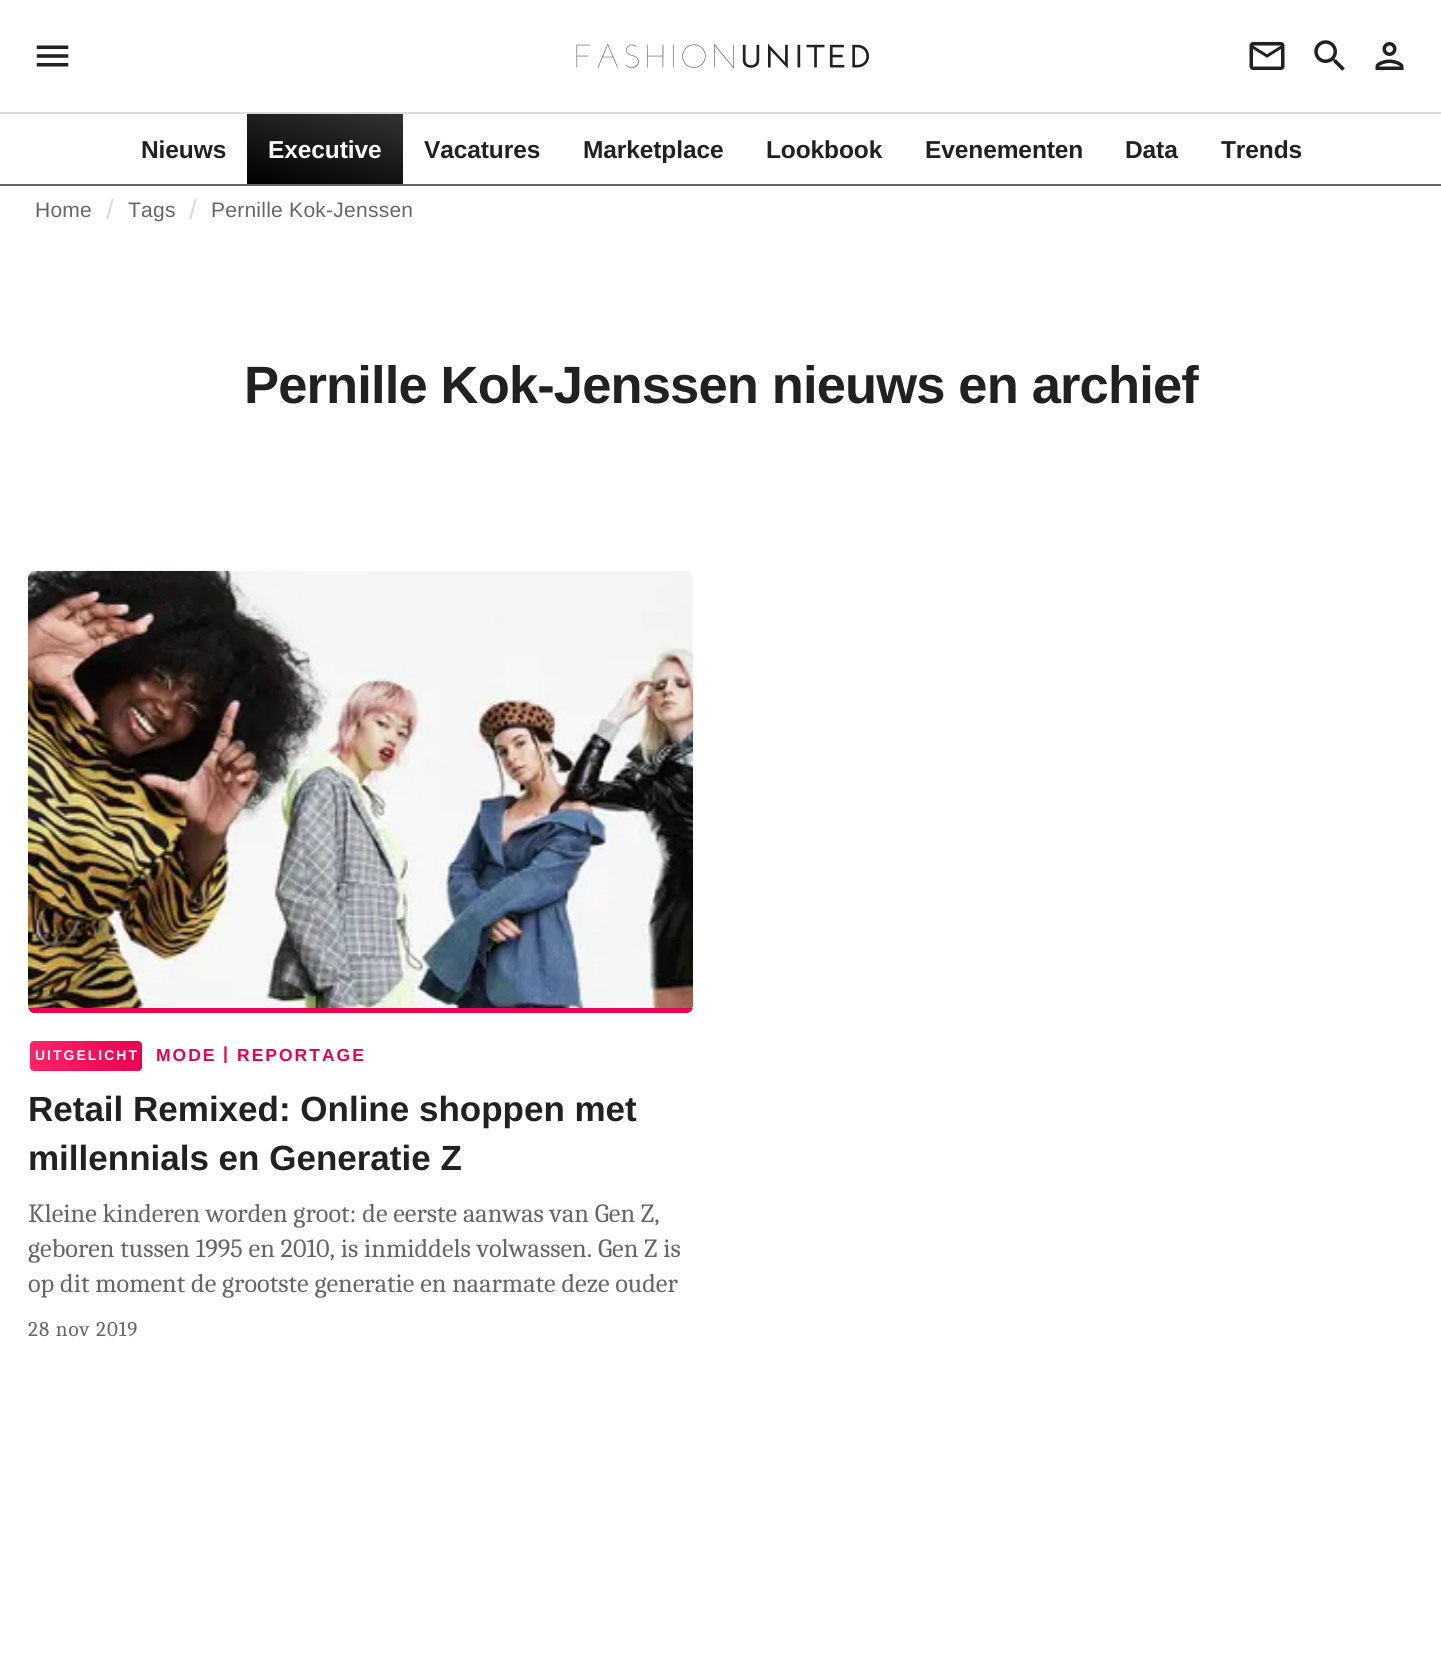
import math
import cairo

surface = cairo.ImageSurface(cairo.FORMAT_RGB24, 1441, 1659)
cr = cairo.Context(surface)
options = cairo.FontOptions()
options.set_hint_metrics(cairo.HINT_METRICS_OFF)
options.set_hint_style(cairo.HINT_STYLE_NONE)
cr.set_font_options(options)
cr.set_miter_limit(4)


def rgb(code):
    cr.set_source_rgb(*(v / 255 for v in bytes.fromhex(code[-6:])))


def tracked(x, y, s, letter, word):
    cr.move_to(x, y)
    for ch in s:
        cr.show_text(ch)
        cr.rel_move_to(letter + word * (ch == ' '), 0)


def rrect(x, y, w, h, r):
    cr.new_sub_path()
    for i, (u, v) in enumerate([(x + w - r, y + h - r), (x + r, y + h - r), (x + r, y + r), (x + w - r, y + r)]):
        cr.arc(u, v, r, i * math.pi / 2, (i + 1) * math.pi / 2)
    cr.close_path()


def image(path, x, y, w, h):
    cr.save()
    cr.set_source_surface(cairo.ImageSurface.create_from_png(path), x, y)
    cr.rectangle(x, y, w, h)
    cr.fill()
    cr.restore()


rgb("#ffffff")
cr.paint()
rgb("#dbdbdb")
cr.rectangle(0, 112, 1441, 2)
cr.fill()
image("img/1.png", 36, 45, 33, 22)
image("img/2.png", 576, 43, 293, 26)
image("img/3.png", 1249, 42, 36, 28)
image("img/4.png", 1314, 40, 31, 31)
image("img/5.png", 1375, 42, 29, 28)
rgb("#666666")
cr.rectangle(0, 184, 1441, 2)
cr.fill()
gradient = cairo.LinearGradient(311, 200, 338, 97)
gradient.add_color_stop_rgba(0, 0, 0, 0, 1)
gradient.add_color_stop_rgba(1, 0.2, 0.2, 0.2, 1)
cr.set_source(gradient)
cr.rectangle(247, 114, 156, 70)
cr.fill()
image("img/6.png", 28, 570, 665, 443)
cr.save()
rrect(28, 571, 665, 442, 7)
cr.clip()
rgb("#ea0151")
cr.rectangle(28, 1008, 665, 5)
cr.fill()
cr.restore()
gradient = cairo.LinearGradient(30, 1056, 142, 1056)
gradient.add_color_stop_rgba(0, 1, 0.141, 0.408, 1)
gradient.add_color_stop_rgba(1, 0.918, 0.004, 0.318, 1)
cr.set_source(gradient)
rrect(30, 1041, 112, 30, 4)
cr.fill()
cr.select_font_face("Liberation Sans", cairo.FONT_SLANT_NORMAL, cairo.FONT_WEIGHT_BOLD)
cr.set_font_size(24.5)
rgb("#212121")
tracked(141, 158, "Nieuws", -0.1, 0)
rgb("#ffffff")
tracked(268, 158, "Executive", -0.1, 0)
rgb("#212121")
for x, y, s in [
    (424, 158, "Vacatures"),
    (583, 158, "Marketplace"),
    (766, 158, "Lookbook"),
    (925, 158, "Evenementen"),
    (1125, 158, "Data"),
    (1221, 158, "Trends"),
]:
    tracked(x, y, s, -0.1, 0)
cr.select_font_face("Liberation Sans")
cr.set_font_size(21)
rgb("#666666")
tracked(35, 217, "Home", 0.25, 0)
cr.set_font_size(28)
rgb("#dbdbdb")
cr.move_to(106, 219)
cr.show_text("/")
cr.set_font_size(21)
rgb("#666666")
tracked(128, 217, "Tags", 0.25, 0)
cr.set_font_size(28)
rgb("#dbdbdb")
cr.move_to(189, 219)
cr.show_text("/")
cr.set_font_size(21)
rgb("#666666")
tracked(211, 217, "Pernille Kok-Jenssen", 0.25, 0)
cr.select_font_face("Liberation Sans", cairo.FONT_SLANT_NORMAL, cairo.FONT_WEIGHT_BOLD)
cr.set_font_size(52.5)
rgb("#212121")
tracked(244, 403, "Pernille Kok-Jenssen nieuws en archief", -0.85, 0)
cr.set_font_size(14)
rgb("#ffffff")
tracked(35, 1060, "UITGELICHT", 2, 0)
cr.set_font_size(17.5)
rgb("#ea0151")
for x, y, s in [
    (156, 1061, "MODE"),
    (223, 1059, "|"),
    (237, 1061, "REPORTAGE"),
]:
    tracked(x, y, s, 2, 0)
cr.set_font_size(35)
rgb("#212121")
cr.move_to(28, 1121)
cr.show_text("Retail Remixed: Online shoppen met")
cr.move_to(28, 1170)
cr.show_text("millennials en Generatie Z")
cr.select_font_face("Caladea")
cr.set_font_size(26.25)
rgb("#666666")
for x, y, s in [
    (28, 1222, "Kleine kinderen worden groot: de eerste aanwas van Gen Z,"),
    (28, 1257, "geboren tussen 1995 en 2010, is inmiddels volwassen. Gen Z is"),
    (28, 1292, "op dit moment de grootste generatie en naarmate deze ouder"),
]:
    cr.move_to(x, y)
    cr.show_text(s)
cr.set_font_size(21)
tracked(28, 1336, "28 nov 2019", 1, 0)
surface.write_to_png("page.png")
